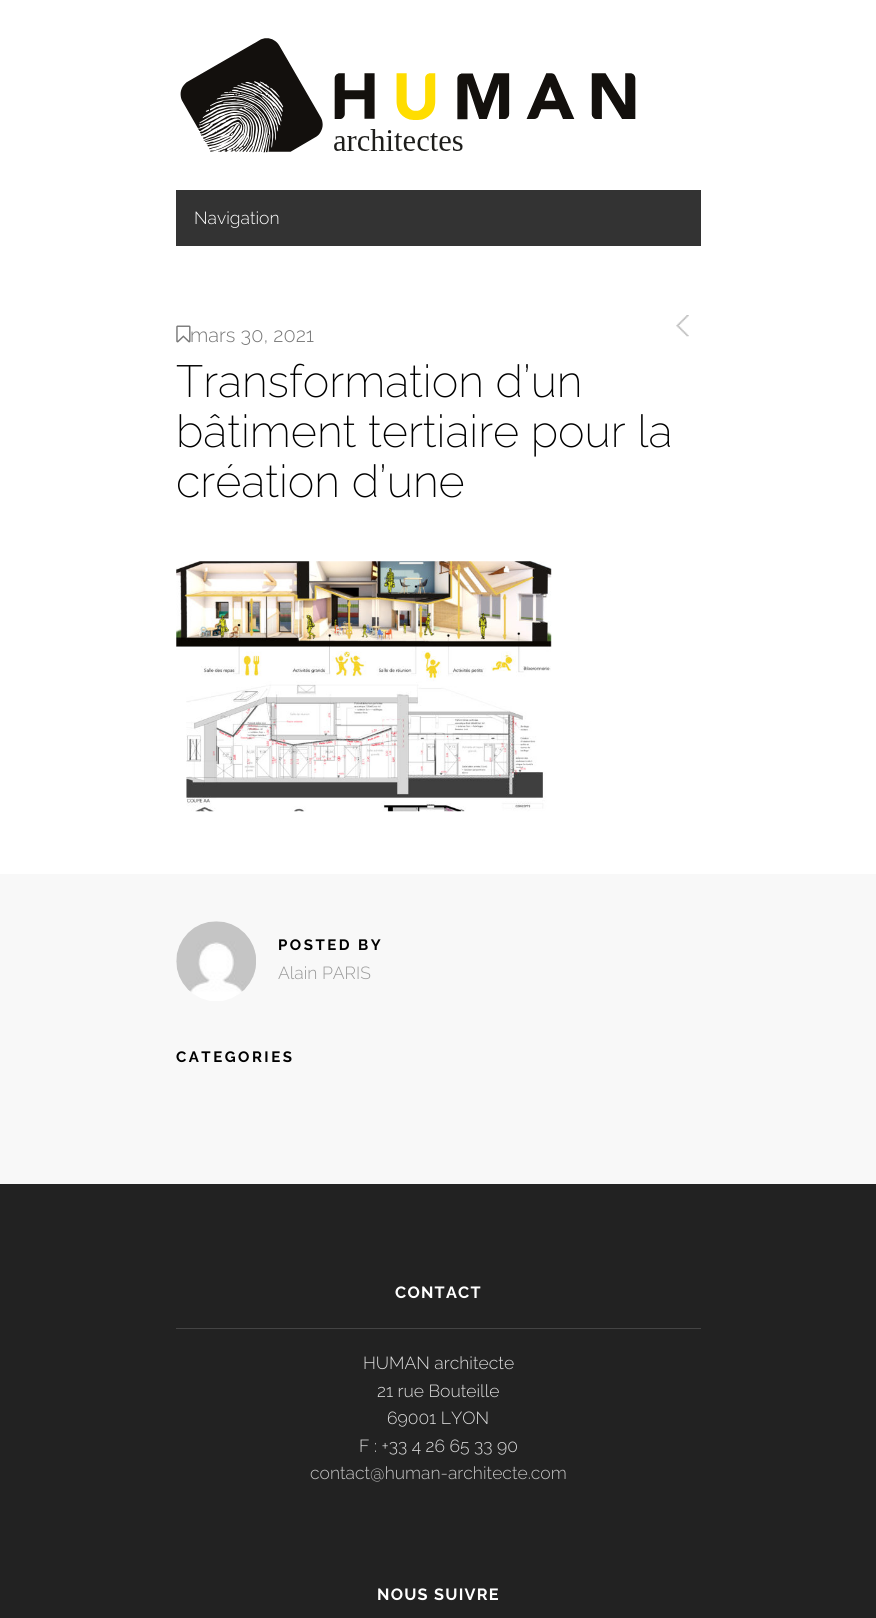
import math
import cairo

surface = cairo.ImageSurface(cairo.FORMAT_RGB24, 876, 1618)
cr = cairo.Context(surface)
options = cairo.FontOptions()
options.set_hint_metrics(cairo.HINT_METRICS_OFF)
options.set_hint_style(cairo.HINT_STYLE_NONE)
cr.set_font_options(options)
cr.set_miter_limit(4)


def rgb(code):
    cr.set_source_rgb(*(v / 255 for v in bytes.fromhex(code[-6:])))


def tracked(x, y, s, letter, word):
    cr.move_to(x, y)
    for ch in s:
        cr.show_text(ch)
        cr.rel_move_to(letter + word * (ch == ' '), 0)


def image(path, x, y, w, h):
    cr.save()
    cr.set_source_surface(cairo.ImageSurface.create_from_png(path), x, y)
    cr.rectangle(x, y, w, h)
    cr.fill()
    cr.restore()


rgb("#ffffff")
cr.paint()
image("img/1.png", 180, 38, 456, 115)
rgb("#333333")
cr.rectangle(176, 190, 525, 56)
cr.fill()
image("img/2.png", 676, 315, 13, 22)
image("img/3.png", 176, 325, 15, 18)
image("img/4.png", 176, 561, 376, 251)
rgb("#f8f8f8")
cr.rectangle(0, 874, 876, 310)
cr.fill()
image("img/5.png", 176, 921, 80, 80)
rgb("#222222")
cr.rectangle(0, 1184, 876, 434)
cr.fill()
rgb("#444444")
cr.rectangle(176, 1328, 525, 1)
cr.fill()
cr.select_font_face("Raleway Light")
cr.set_font_size(17.5)
rgb("#ffffff")
cr.move_to(194, 224)
cr.show_text("Navigation")
cr.set_font_size(20)
rgb("#777777")
cr.move_to(190, 342)
cr.show_text("mars 30, 2021")
cr.select_font_face("Raleway ExtraLight")
cr.set_font_size(45)
rgb("#000000")
for x, y, s in [
    (176, 397, "Transformation d’un"),
    (176, 447, "bâtiment tertiaire pour la"),
    (176, 497, "création d’une"),
]:
    cr.move_to(x, y)
    cr.show_text(s)
cr.select_font_face("Raleway", cairo.FONT_SLANT_NORMAL, cairo.FONT_WEIGHT_BOLD)
cr.set_font_size(15)
tracked(278, 950, "POSTED BY", 2.5, 0)
cr.select_font_face("Raleway Light")
cr.set_font_size(17.5)
rgb("#999999")
cr.move_to(278, 979)
cr.show_text("Alain PARIS")
cr.select_font_face("Raleway", cairo.FONT_SLANT_NORMAL, cairo.FONT_WEIGHT_BOLD)
cr.set_font_size(15)
rgb("#000000")
tracked(176, 1062, "CATEGORIES", 2.5, 0)
cr.set_font_size(16.25)
rgb("#ffffff")
tracked(395, 1298, "CONTACT", 1.25, 0)
cr.select_font_face("Raleway Light")
cr.set_font_size(17.5)
rgb("#dcdcdc")
for x, y, s in [
    (363, 1369, "HUMAN architecte"),
    (377, 1397, "21 rue Bouteille"),
    (387, 1424, "69001 LYON"),
    (359, 1452, "F : +33 4 26 65 33 90"),
]:
    cr.move_to(x, y)
    cr.show_text(s)
rgb("#c4c4c4")
cr.move_to(310, 1479)
cr.show_text("contact@human-architecte.com")
cr.select_font_face("Raleway", cairo.FONT_SLANT_NORMAL, cairo.FONT_WEIGHT_BOLD)
cr.set_font_size(16.25)
rgb("#ffffff")
tracked(377, 1600, "NOUS SUIVRE", 1.25, 0)
surface.write_to_png("page.png")
